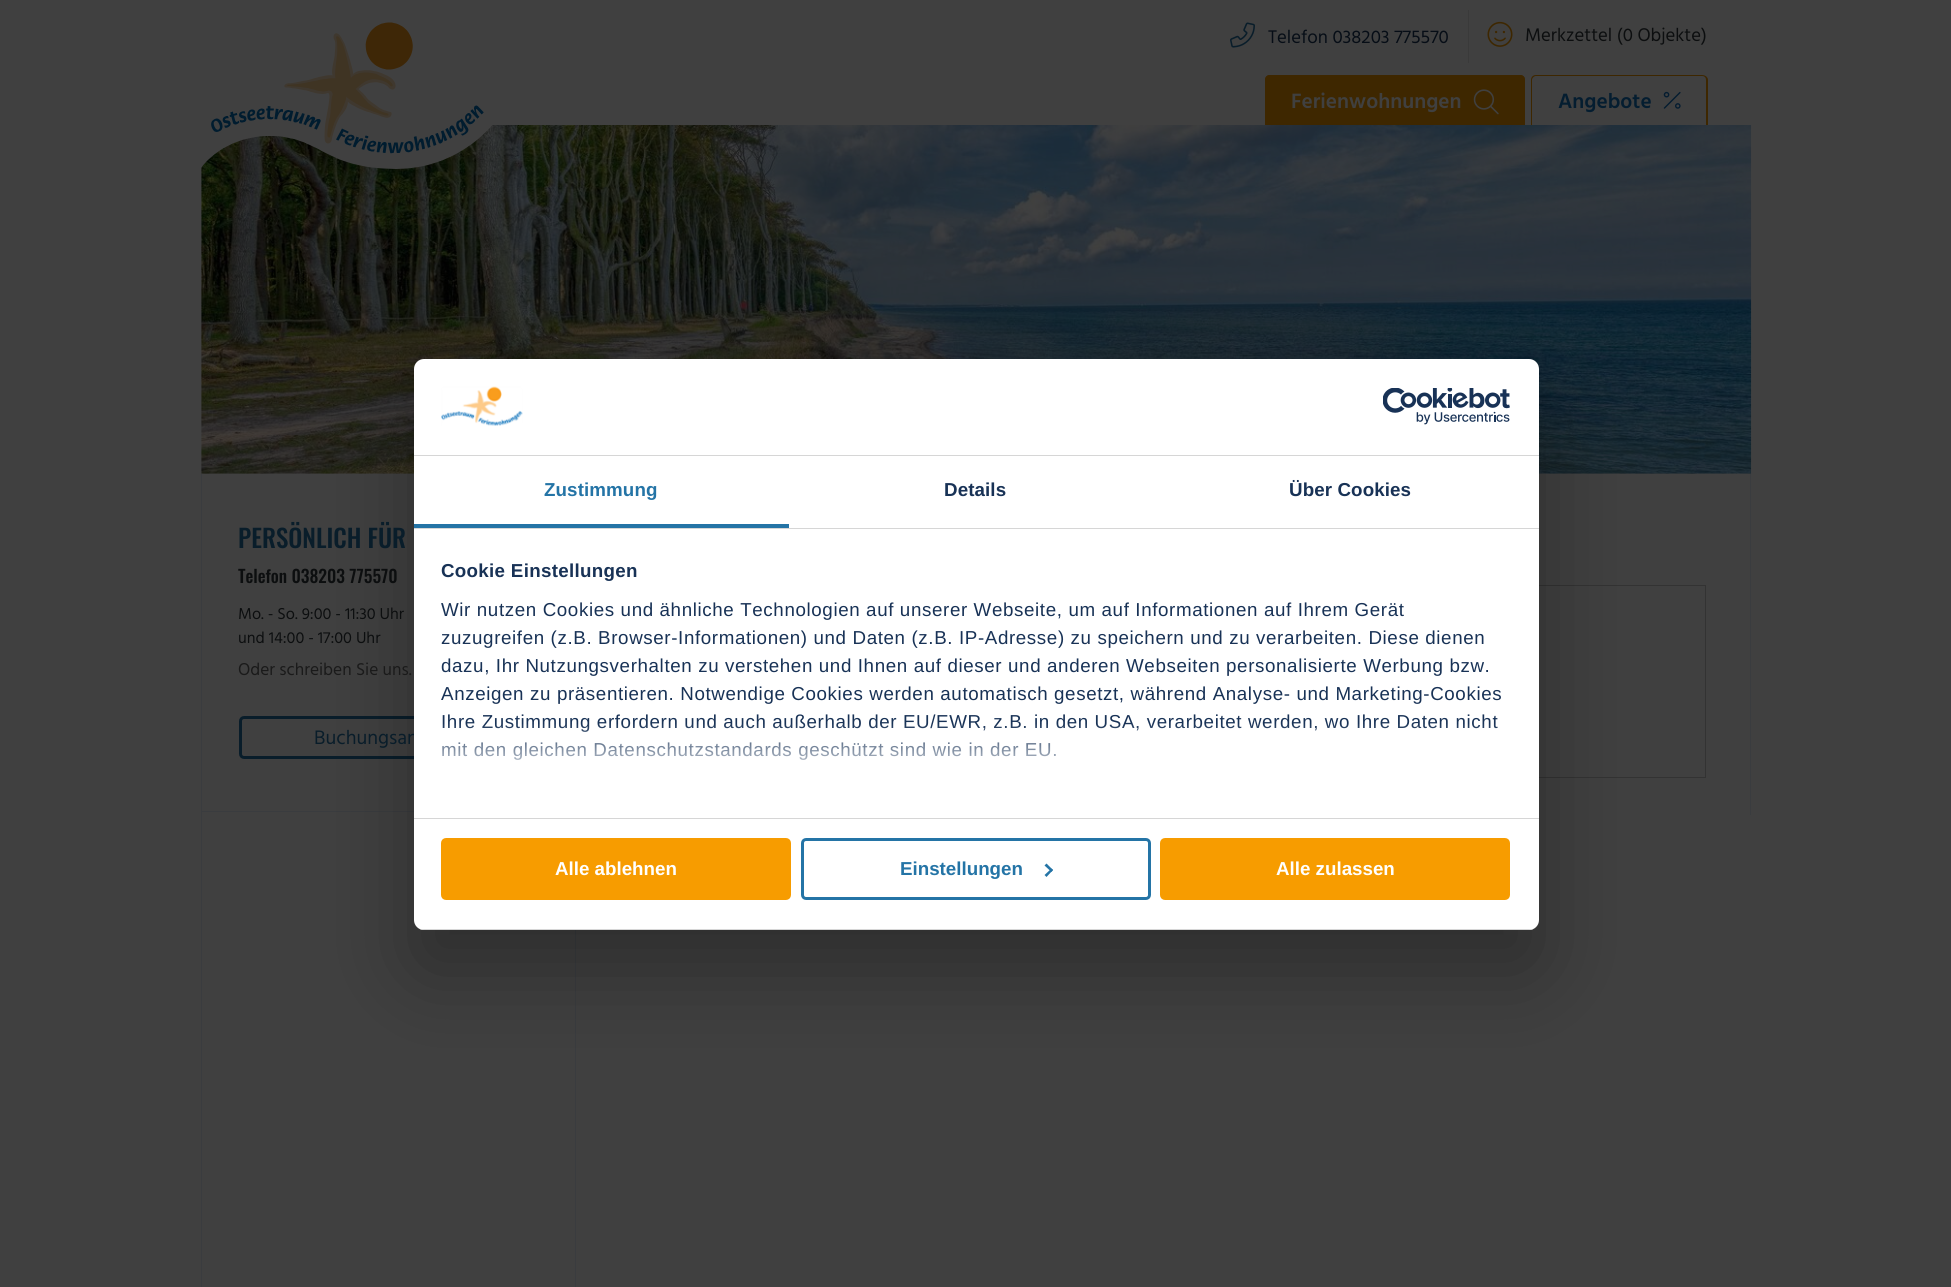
import math
import cairo

surface = cairo.ImageSurface(cairo.FORMAT_RGB24, 1951, 1287)
cr = cairo.Context(surface)
options = cairo.FontOptions()
options.set_hint_metrics(cairo.HINT_METRICS_OFF)
options.set_hint_style(cairo.HINT_STYLE_NONE)
cr.set_font_options(options)
cr.set_miter_limit(4)


def rgb(code):
    cr.set_source_rgb(*(v / 255 for v in bytes.fromhex(code[-6:])))


def tracked(x, y, s, letter, word):
    cr.move_to(x, y)
    for ch in s:
        cr.show_text(ch)
        cr.rel_move_to(letter + word * (ch == ' '), 0)


def rrect(x, y, w, h, r):
    cr.new_sub_path()
    for i, (u, v) in enumerate([(x + w - r, y + h - r), (x + r, y + h - r), (x + r, y + r), (x + w - r, y + r)]):
        cr.arc(u, v, r, i * math.pi / 2, (i + 1) * math.pi / 2)
    cr.close_path()


def soft_shadow(x, y, w, h, r, blur, alpha):
    cr.push_group_with_content(cairo.CONTENT_ALPHA)
    cr.set_operator(cairo.OPERATOR_SOURCE)
    for i in range(15, -16, -2):
        e = blur * i / 6
        if min(w, h) + 2 * e > 0:
            cr.set_source_rgba(0, 0, 0, alpha * math.erfc((i - 1) / 8.5) / 2)
            rrect(x - e, y - e, w + 2 * e, h + 2 * e, max(0, min(r + e + blur * .6, min(w, h) / 2 + e)))
            cr.fill()
    cr.mask(cr.pop_group())


def image(path, x, y, w, h):
    cr.save()
    cr.set_source_surface(cairo.ImageSurface.create_from_png(path), x, y)
    cr.rectangle(x, y, w, h)
    cr.fill()
    cr.restore()


rgb("#404040")
cr.paint()
rgb("#3d3d3d")
cr.rectangle(201, 167, 1550, 307)
cr.fill()
image("img/6.png", 201, 125, 1551, 349)
image("img/1.png", 201, 22, 292, 147)
image("img/2.png", 1230, 22, 25, 26)
rgb("#3a3a3a")
cr.rectangle(1468, 10, 1, 53)
cr.fill()
image("img/3.png", 1487, 21, 26, 26)
rgb("#3e2700")
cr.new_path()
cr.move_to(1270, 75)
cr.line_to(1520, 75)
cr.curve_to(1523, 75, 1525, 77, 1525, 80)
cr.line_to(1525, 125)
cr.line_to(1265, 125)
cr.line_to(1265, 80)
cr.curve_to(1265, 77, 1267, 75, 1270, 75)
cr.close_path()
cr.fill()
cr.set_fill_rule(cairo.FILL_RULE_EVEN_ODD)
cr.new_path()
cr.move_to(1270, 75)
cr.line_to(1520, 75)
cr.curve_to(1523, 75, 1525, 77, 1525, 80)
cr.line_to(1525, 125)
cr.line_to(1265, 125)
cr.line_to(1265, 80)
cr.curve_to(1265, 77, 1267, 75, 1270, 75)
cr.close_path()
cr.move_to(1270, 76)
cr.line_to(1520, 76)
cr.curve_to(1522, 76, 1524, 78, 1524, 80)
cr.line_to(1524, 125)
cr.line_to(1266, 125)
cr.line_to(1266, 80)
cr.curve_to(1266, 78, 1268, 76, 1270, 76)
cr.close_path()
cr.fill()
image("img/4.png", 1473, 89, 26, 26)
cr.new_path()
cr.move_to(1536, 75)
cr.line_to(1702, 75)
cr.curve_to(1705, 75, 1708, 77, 1708, 80)
cr.line_to(1708, 125)
cr.line_to(1531, 125)
cr.line_to(1531, 80)
cr.curve_to(1531, 77, 1533, 75, 1536, 75)
cr.close_path()
cr.move_to(1536, 76)
cr.line_to(1702, 76)
cr.curve_to(1705, 76, 1706, 78, 1706, 80)
cr.line_to(1706, 125)
cr.line_to(1532, 125)
cr.line_to(1532, 80)
cr.curve_to(1532, 78, 1534, 76, 1536, 76)
cr.close_path()
cr.fill()
image("img/5.png", 1663, 91, 18, 18)
rgb("#3a3c3f")
cr.rectangle(201, 811, 213, 1)
cr.fill()
cr.rectangle(201, 474, 1, 813)
cr.fill()
rrect(240.5, 717.5, 297, 40, 3.5)
rgb("#091d2a")
cr.set_line_width(3)
cr.stroke()
rgb("#3a3c3f")
cr.rectangle(575, 930, 1, 357)
cr.fill()
cr.rectangle(1750, 474, 1, 341)
cr.fill()
cr.rectangle(620.5, 585.5, 1085, 192)
rgb("#333333")
cr.set_line_width(1)
cr.stroke()
rgb("#000000")
soft_shadow(414, 399, 1125, 571, 10, 42.5, 0.3)
cr.select_font_face("Hind Madurai")
cr.set_font_size(18.75)
rgb("#060d16")
cr.move_to(1268, 43)
cr.show_text("Telefon 038203 775570")
rgb("#0c0e0f")
cr.move_to(1525, 41)
cr.show_text("Merkzettel (0 Objekte)")
cr.select_font_face("Hind Madurai SemiBold")
cr.set_font_size(21.25)
rgb("#404040")
cr.move_to(1291, 108)
cr.show_text("Ferienwohnungen")
rgb("#041d30")
cr.move_to(1558, 108)
cr.show_text("Angebote")
cr.select_font_face("Oswald Medium")
cr.set_font_size(25)
rgb("#091d2a")
cr.move_to(238, 548)
cr.show_text("PERSÖNLICH FÜR")
cr.set_font_size(17.5)
rgb("#0c0e0f")
cr.move_to(238, 583)
cr.show_text("Telefon 038203 775570")
cr.select_font_face("Hind Madurai")
cr.set_font_size(16.25)
cr.move_to(238, 619)
cr.show_text("Mo. - So. 9:00 - 11:30 Uhr")
cr.move_to(238, 643)
cr.show_text("und 14:00 - 17:00 Uhr")
cr.set_font_size(17.5)
rgb("#1a1a1a")
cr.move_to(238, 675)
cr.show_text("Oder schreiben Sie uns.")
cr.set_font_size(20)
rgb("#091d2a")
cr.move_to(314, 744)
cr.show_text("Buchungsan")
rgb("#ffffff")
rrect(414, 359, 1125, 571, 10)
cr.fill()
rgb("#d6d6d6")
cr.rectangle(414, 455, 1125, 1)
cr.fill()
image("img/7.png", 441, 386, 82, 40)
image("img/8.png", 1383, 388, 127, 37)
cr.rectangle(414, 528, 1125, 1)
cr.fill()
rgb("#2474a6")
cr.rectangle(414, 524, 375, 4)
cr.fill()
cr.select_font_face("Liberation Sans", cairo.FONT_SLANT_NORMAL, cairo.FONT_WEIGHT_BOLD)
cr.set_font_size(18.75)
tracked(544, 496, "Zustimmung", 0.1, 0)
rgb("#183256")
tracked(944, 496, "Details", 0.1, 0)
tracked(1289, 496, "Über Cookies", 0.1, 0)
rgb("#d6d6d6")
cr.rectangle(414, 818, 1125, 1)
cr.fill()
rgb("#183256")
tracked(441, 577, "Cookie Einstellungen", 0.3, 0)
cr.select_font_face("Liberation Sans")
for x, y, s in [
    (441, 616, "Wir nutzen Cookies und ähnliche Technologien auf unserer Webseite, um auf Informationen auf Ihrem Gerät"),
    (441, 644, "zuzugreifen (z.B. Browser-Informationen) und Daten (z.B. IP-Adresse) zu speichern und zu verarbeiten. Diese dienen"),
    (441, 672, "dazu, Ihr Nutzungsverhalten zu verstehen und Ihnen auf dieser und anderen Webseiten personalisierte Werbung bzw."),
    (441, 700, "Anzeigen zu präsentieren. Notwendige Cookies werden automatisch gesetzt, während Analyse- und Marketing-Cookies"),
    (441, 728, "Ihre Zustimmung erfordern und auch außerhalb der EU/EWR, z.B. in den USA, verarbeitet werden, wo Ihre Daten nicht"),
    (441, 756, "mit den gleichen Datenschutzstandards geschützt sind wie in der EU."),
]:
    tracked(x, y, s, 0.62, 0)
gradient = cairo.LinearGradient(963, 817, 963, 723)
gradient.add_color_stop_rgba(0, 1, 1, 1, 1)
gradient.add_color_stop_rgba(0.5, 1, 1, 1, 0.8)
gradient.add_color_stop_rgba(1, 1, 1, 1, 0)
cr.set_source(gradient)
cr.rectangle(442, 724, 1056, 36)
cr.fill()
cr.save()
cr.set_fill_rule(cairo.FILL_RULE_WINDING)
rrect(414, 359, 1125, 571, 10)
cr.clip()
rgb("#d6d6d6")
cr.rectangle(414, 929, 1125, 1)
cr.fill()
cr.restore()
rgb("#f79c00")
rrect(442.5, 839.5, 347, 59, 3.5)
cr.fill_preserve()
cr.set_line_width(3)
cr.stroke()
cr.select_font_face("Liberation Sans", cairo.FONT_SLANT_NORMAL, cairo.FONT_WEIGHT_BOLD)
rgb("#ffffff")
cr.move_to(555, 875)
cr.show_text("Alle ablehnen")
rrect(802.5, 839.5, 347, 59, 3.5)
rgb("#2474a6")
cr.stroke()
cr.move_to(900, 875)
cr.show_text("Einstellungen")
cr.set_fill_rule(cairo.FILL_RULE_WINDING)
cr.new_path()
cr.move_to(1046.5, 863.5)
cr.line_to(1053, 870)
cr.line_to(1051.5, 872)
cr.line_to(1044.5, 865.5)
cr.close_path()
cr.fill()
cr.new_path()
cr.move_to(1051.5, 868.5)
cr.line_to(1053, 870)
cr.line_to(1046.5, 877)
cr.line_to(1044.5, 875)
cr.close_path()
cr.fill()
rgb("#f79c00")
rrect(1161.5, 839.5, 347, 59, 3.5)
cr.fill_preserve()
cr.stroke()
rgb("#ffffff")
cr.move_to(1276, 875)
cr.show_text("Alle zulassen")
surface.write_to_png("page.png")
